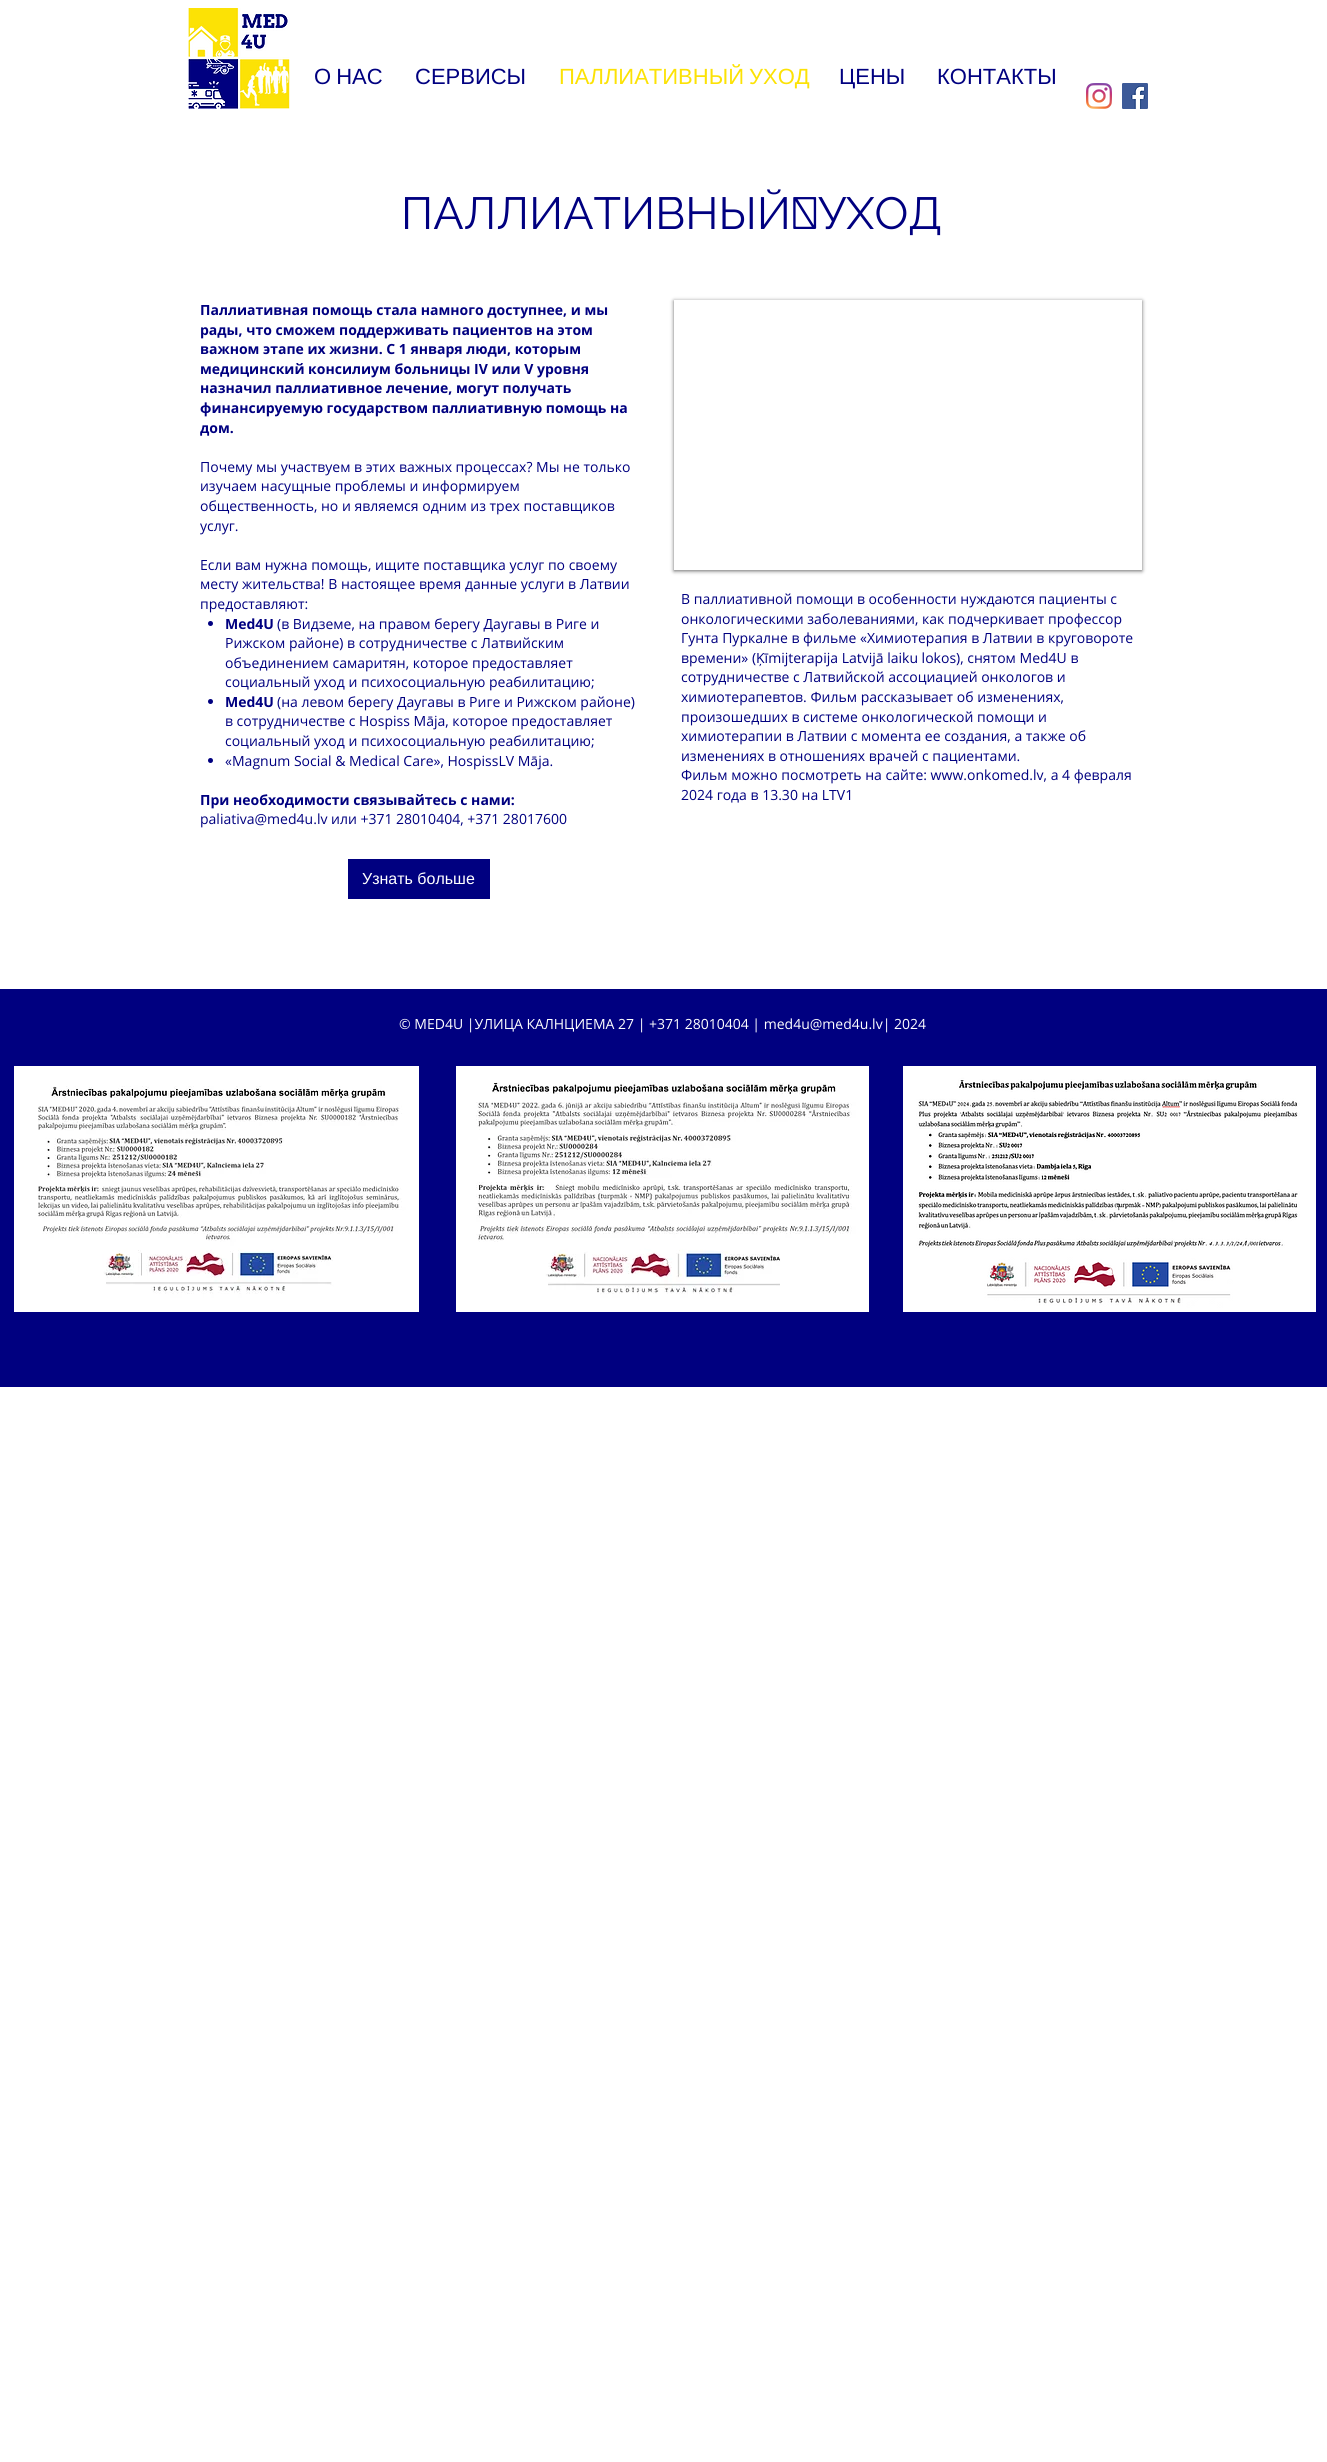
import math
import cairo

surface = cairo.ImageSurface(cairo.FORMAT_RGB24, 1327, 2462)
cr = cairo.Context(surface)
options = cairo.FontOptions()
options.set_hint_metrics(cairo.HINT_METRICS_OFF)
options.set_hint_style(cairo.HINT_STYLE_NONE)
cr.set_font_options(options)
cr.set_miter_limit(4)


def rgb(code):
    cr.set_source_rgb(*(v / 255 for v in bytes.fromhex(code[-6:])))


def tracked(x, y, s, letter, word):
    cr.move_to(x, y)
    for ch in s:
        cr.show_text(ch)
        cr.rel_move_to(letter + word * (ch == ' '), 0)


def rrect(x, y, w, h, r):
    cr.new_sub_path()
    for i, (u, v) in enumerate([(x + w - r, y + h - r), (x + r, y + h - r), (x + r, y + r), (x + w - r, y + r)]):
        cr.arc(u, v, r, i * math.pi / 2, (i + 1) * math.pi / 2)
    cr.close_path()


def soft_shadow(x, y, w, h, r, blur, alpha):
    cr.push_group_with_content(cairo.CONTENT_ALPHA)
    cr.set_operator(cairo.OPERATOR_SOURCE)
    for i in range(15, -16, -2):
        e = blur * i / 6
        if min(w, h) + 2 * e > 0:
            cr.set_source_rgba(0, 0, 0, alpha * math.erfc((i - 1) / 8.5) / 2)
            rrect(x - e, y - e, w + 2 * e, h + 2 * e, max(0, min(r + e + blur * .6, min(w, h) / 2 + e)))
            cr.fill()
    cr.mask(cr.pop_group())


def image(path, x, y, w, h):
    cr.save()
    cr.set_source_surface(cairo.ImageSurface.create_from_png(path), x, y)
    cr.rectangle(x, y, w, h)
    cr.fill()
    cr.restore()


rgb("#ffffff")
cr.paint()
image("img/1.png", 188, 8, 102, 101)
image("img/2.png", 1086, 83, 26, 26)
image("img/3.png", 1122, 83, 26, 26)
rgb("#000080")
cr.arc(210.5, 623.5, 2.5, 0, 2 * math.pi)
cr.fill()
cr.arc(210.5, 701.5, 2.5, 0, 2 * math.pi)
cr.fill()
cr.arc(210.5, 760.5, 2.5, 0, 2 * math.pi)
cr.fill()
cr.rectangle(348, 859, 142, 40)
cr.fill()
cr.save()
cr.set_fill_rule(cairo.FILL_RULE_EVEN_ODD)
cr.new_path()
cr.move_to(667, 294)
cr.line_to(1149, 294)
cr.line_to(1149, 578)
cr.line_to(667, 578)
cr.close_path()
cr.move_to(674, 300)
cr.line_to(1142, 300)
cr.line_to(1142, 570)
cr.line_to(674, 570)
cr.close_path()
cr.clip()
rgb("#000000")
soft_shadow(674, 301, 468, 270, 0, 2, 0.6)
cr.restore()
cr.rectangle(0, 989, 1327, 398)
cr.fill()
image("img/4.png", 14, 1066, 405, 246)
image("img/5.png", 456, 1066, 413, 246)
image("img/6.png", 903, 1066, 413, 246)
cr.select_font_face("Liberation Sans")
cr.set_font_size(22)
tracked(314, 84, "О НАС", 0, -1)
cr.move_to(415, 84)
cr.show_text("СЕРВИСЫ")
rgb("#fce205")
tracked(559, 84, "ПАЛЛИАТИВНЫЙ УХОД", 0, -1)
rgb("#000080")
cr.move_to(839, 84)
cr.show_text("ЦЕНЫ")
cr.move_to(937, 84)
cr.show_text("КОНТАКТЫ")
cr.select_font_face("Raleway")
cr.set_font_size(45)
cr.move_to(401, 229)
cr.show_text("ПАЛЛИАТИВНЫЙ УХОД")
cr.select_font_face("Open Sans", cairo.FONT_SLANT_NORMAL, cairo.FONT_WEIGHT_BOLD)
cr.set_font_size(14)
for x, y, s in [
    (200, 315, "Паллиативная помощь стала намного доступнее, и мы"),
    (200, 335, "рады, что сможем поддерживать пациентов на этом"),
    (200, 354, "важном этапе их жизни. С 1 января люди, которым"),
    (200, 374, "медицинский консилиум больницы IV или V уровня"),
    (200, 393, "назначил паллиативное лечение, могут получать"),
    (200, 413, "финансируемую государством паллиативную помощь на"),
    (200, 433, "дом."),
]:
    cr.move_to(x, y)
    cr.show_text(s)
cr.select_font_face("Open Sans")
for x, y, s in [
    (200, 472, "Почему мы участвуем в этих важных процессах? Мы не только"),
    (200, 491, "изучаем насущные проблемы и информируем"),
    (200, 511, "общественность, но и являемся одним из трех поставщиков"),
    (200, 531, "услуг."),
    (200, 570, "Если вам нужна помощь, ищите поставщика услуг по своему"),
    (200, 589, "месту жительства! В настоящее время данные услуги в Латвии"),
    (200, 609, "предоставляют:"),
]:
    cr.move_to(x, y)
    cr.show_text(s)
cr.select_font_face("Open Sans", cairo.FONT_SLANT_NORMAL, cairo.FONT_WEIGHT_BOLD)
cr.move_to(225, 629)
cr.show_text("Med4U")
cr.select_font_face("Open Sans")
for x, y, s in [
    (277, 629, "(в Видземе, на правом берегу Даугавы в Риге и"),
    (225, 648, "Рижском районе) в сотрудничестве с Латвийским"),
    (225, 668, "объединением самаритян, которое предоставляет"),
    (225, 687, "социальный уход и психосоциальную реабилитацию;"),
]:
    cr.move_to(x, y)
    cr.show_text(s)
cr.select_font_face("Open Sans", cairo.FONT_SLANT_NORMAL, cairo.FONT_WEIGHT_BOLD)
cr.move_to(225, 707)
cr.show_text("Med4U")
cr.select_font_face("Open Sans")
for x, y, s in [
    (277, 707, "(на левом берегу Даугавы в Риге и Рижском районе)"),
    (225, 726, "в сотрудничестве с Hospiss Māja, которое предоставляет"),
    (225, 746, "социальный уход и психосоциальную реабилитацию;"),
    (225, 766, "«Magnum Social & Medical Care», HospissLV Māja."),
]:
    cr.move_to(x, y)
    cr.show_text(s)
cr.select_font_face("Open Sans", cairo.FONT_SLANT_NORMAL, cairo.FONT_WEIGHT_BOLD)
cr.move_to(200, 805)
cr.show_text("При необходимости связывайтесь с нами:")
cr.select_font_face("Open Sans")
cr.move_to(200, 824)
cr.show_text("paliativa@med4u.lv или +371 28010404, +371 28017600")
cr.select_font_face("Liberation Sans")
cr.set_font_size(16)
rgb("#ffffff")
cr.move_to(362, 884)
cr.show_text("Узнать больше")
cr.select_font_face("Open Sans")
cr.set_font_size(14)
rgb("#000080")
for x, y, s in [
    (681, 604, "В паллиативной помощи в особенности нуждаются пациенты с"),
    (681, 624, "онкологическими заболеваниями, как подчеркивает профессор"),
    (681, 643, "Гунта Пуркалне в фильме «Химиотерапия в Латвии в круговороте"),
    (681, 663, "времени» (Ķīmijterapija Latvijā laiku lokos), снятом Med4U в"),
    (681, 682, "сотрудничестве с Латвийской ассоциацией онкологов и"),
    (681, 702, "химиотерапевтов. Фильм рассказывает об изменениях,"),
    (681, 722, "произошедших в системе онкологической помощи и"),
    (681, 741, "химиотерапии в Латвии с момента ее создания, а также об"),
    (681, 761, "изменениях в отношениях врачей с пациентами."),
    (681, 780, "Фильм можно посмотреть на сайте: www.onkomed.lv, а 4 февраля"),
    (681, 800, "2024 года в 13.30 на LTV1"),
]:
    cr.move_to(x, y)
    cr.show_text(s)
rgb("#ffffff")
cr.move_to(399, 1029)
cr.show_text("© MED4U |УЛИЦА КАЛНЦИЕМА 27 | +371 28010404 | med4u@med4u.lv| 2024")
surface.write_to_png("page.png")
